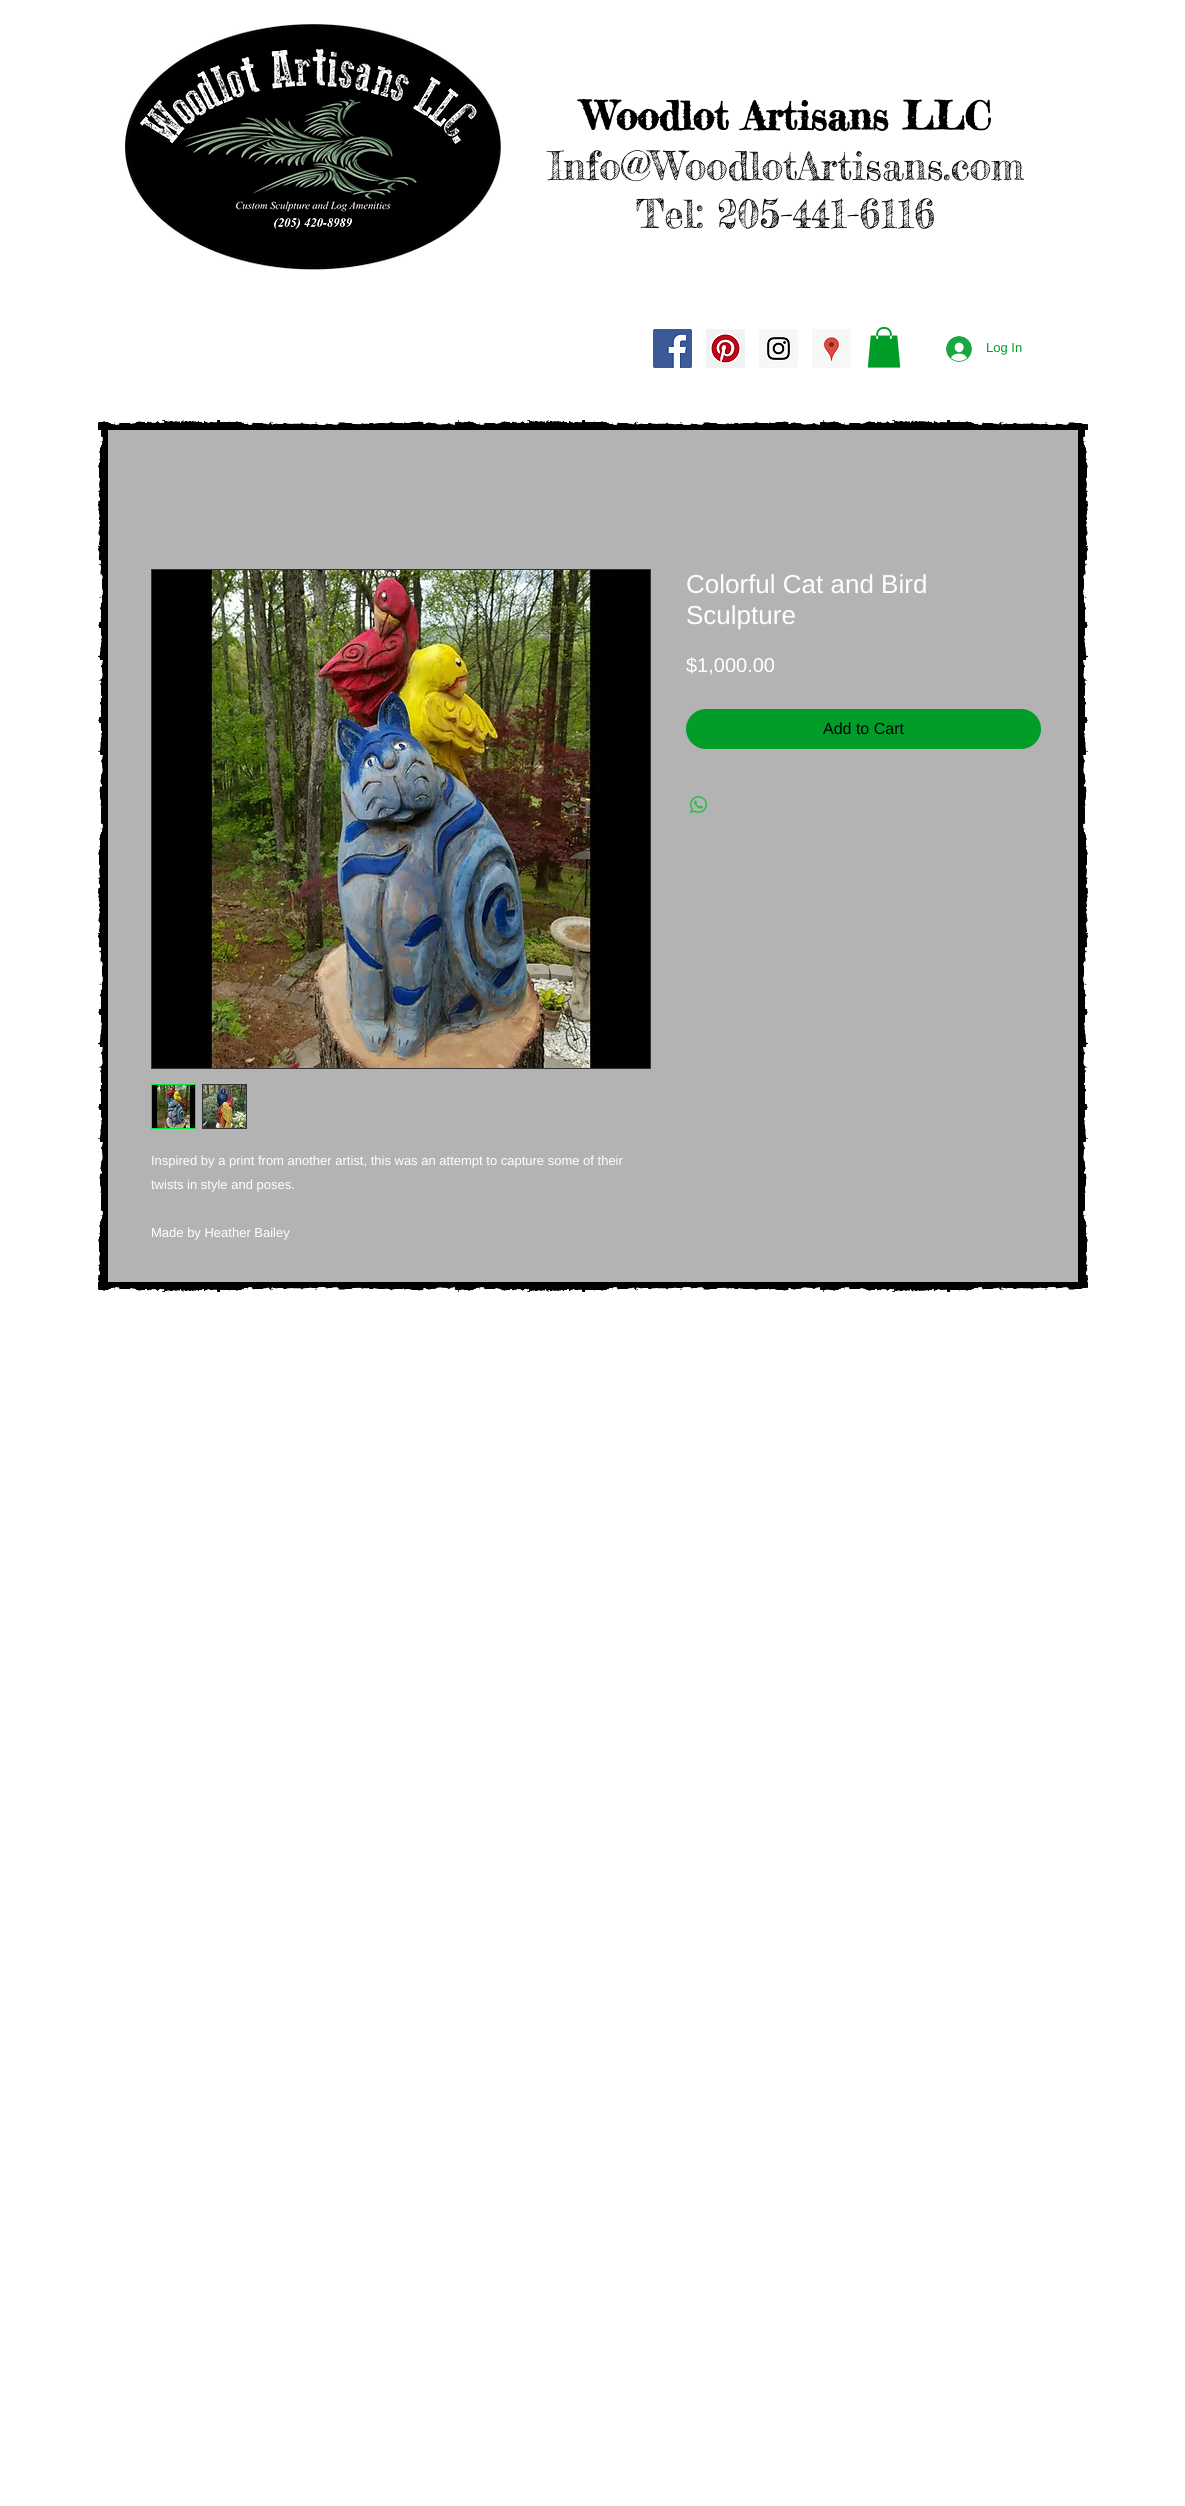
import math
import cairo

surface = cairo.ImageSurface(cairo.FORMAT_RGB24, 1185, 2506)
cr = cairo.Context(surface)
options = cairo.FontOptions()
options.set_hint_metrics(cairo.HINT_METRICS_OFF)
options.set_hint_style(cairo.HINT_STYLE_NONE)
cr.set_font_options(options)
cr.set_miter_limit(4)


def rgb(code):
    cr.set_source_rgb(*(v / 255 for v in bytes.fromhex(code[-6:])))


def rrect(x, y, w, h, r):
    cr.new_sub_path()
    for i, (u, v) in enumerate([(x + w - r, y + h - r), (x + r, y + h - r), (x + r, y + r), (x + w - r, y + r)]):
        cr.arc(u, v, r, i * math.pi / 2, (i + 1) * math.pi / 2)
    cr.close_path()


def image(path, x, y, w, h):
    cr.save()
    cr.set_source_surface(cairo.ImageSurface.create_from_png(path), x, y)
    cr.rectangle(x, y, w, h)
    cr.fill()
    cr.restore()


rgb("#ffffff")
cr.paint()
image("img/1.png", 125, 24, 376, 246)
image("img/2.png", 653, 329, 39, 39)
image("img/3.png", 706, 329, 39, 39)
image("img/4.png", 759, 329, 39, 39)
image("img/5.png", 812, 329, 39, 39)
image("img/6.png", 867, 327, 34, 41)
image("img/7.png", 946, 336, 26, 26)
rgb("#b4b3b3")
cr.rectangle(108, 430, 970, 852)
cr.fill()
image("img/8.png", 98, 420, 990, 10)
image("img/9.png", 98, 1282, 990, 10)
image("img/10.png", 98, 430, 10, 852)
image("img/11.png", 1078, 430, 10, 852)
rgb("#009d29")
rrect(686, 709, 355, 40, 20)
cr.fill()
image("img/12.png", 690, 796, 17, 17)
cr.rectangle(151.5, 569.5, 499, 499)
rgb("#333333")
cr.set_line_width(1)
cr.stroke()
image("img/13.png", 152, 570, 498, 498)
cr.rectangle(151.5, 1084.5, 44, 44)
rgb("#00ec3d")
cr.stroke()
image("img/14.png", 152, 1085, 43, 43)
rgb("#333333")
cr.rectangle(202, 1084, 45, 45)
cr.fill()
image("img/15.png", 203, 1085, 43, 43)
cr.select_font_face("Fredericka the Great", cairo.FONT_SLANT_NORMAL, cairo.FONT_WEIGHT_BOLD)
cr.set_font_size(39)
rgb("#000000")
cr.move_to(582, 130)
cr.show_text("Woodlot Artisans LLC")
cr.select_font_face("Fredericka the Great")
cr.move_to(548, 180)
cr.show_text("Info@WoodlotArtisans.com")
cr.move_to(636, 228)
cr.show_text("Tel: 205-441-6116")
cr.select_font_face("Liberation Sans")
cr.set_font_size(13)
rgb("#009d29")
cr.move_to(986, 352)
cr.show_text("Log In")
cr.set_font_size(26)
rgb("#ffffff")
cr.move_to(686, 593)
cr.show_text("Colorful Cat and Bird")
cr.move_to(686, 624)
cr.show_text("Sculpture")
cr.set_font_size(20)
cr.move_to(686, 672)
cr.show_text("$1,000.00")
cr.set_font_size(16)
rgb("#000000")
cr.move_to(823, 734)
cr.show_text("Add to Cart")
cr.set_font_size(13)
rgb("#ffffff")
for x, y, s in [
    (151, 1165, "Inspired by a print from another artist, this was an attempt to capture some of their"),
    (151, 1189, "twists in style and poses."),
    (151, 1237, "Made by Heather Bailey"),
]:
    cr.move_to(x, y)
    cr.show_text(s)
surface.write_to_png("page.png")
